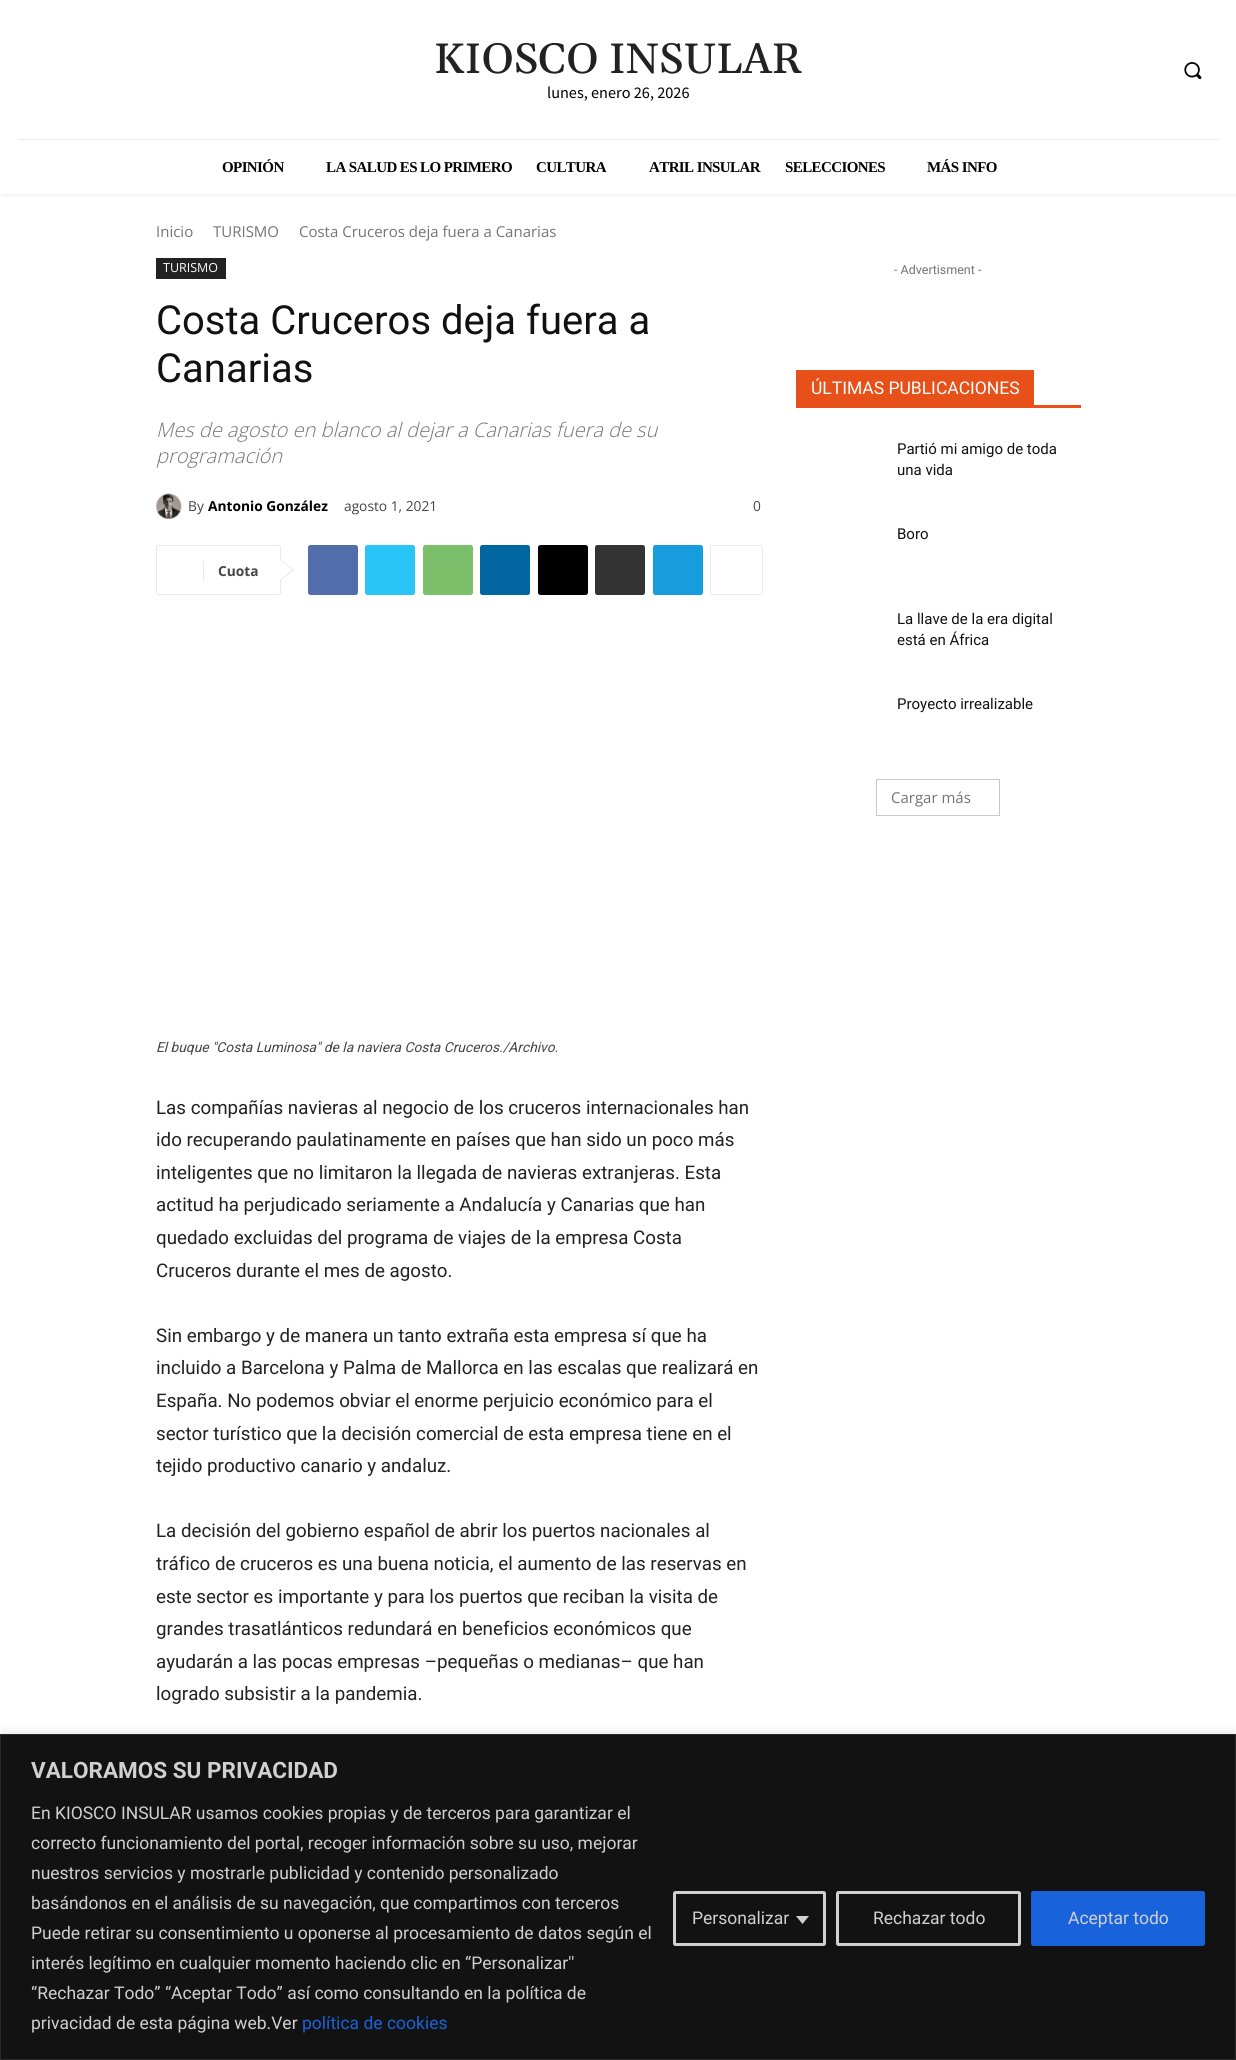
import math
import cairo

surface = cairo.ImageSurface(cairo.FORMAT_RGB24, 1236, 2060)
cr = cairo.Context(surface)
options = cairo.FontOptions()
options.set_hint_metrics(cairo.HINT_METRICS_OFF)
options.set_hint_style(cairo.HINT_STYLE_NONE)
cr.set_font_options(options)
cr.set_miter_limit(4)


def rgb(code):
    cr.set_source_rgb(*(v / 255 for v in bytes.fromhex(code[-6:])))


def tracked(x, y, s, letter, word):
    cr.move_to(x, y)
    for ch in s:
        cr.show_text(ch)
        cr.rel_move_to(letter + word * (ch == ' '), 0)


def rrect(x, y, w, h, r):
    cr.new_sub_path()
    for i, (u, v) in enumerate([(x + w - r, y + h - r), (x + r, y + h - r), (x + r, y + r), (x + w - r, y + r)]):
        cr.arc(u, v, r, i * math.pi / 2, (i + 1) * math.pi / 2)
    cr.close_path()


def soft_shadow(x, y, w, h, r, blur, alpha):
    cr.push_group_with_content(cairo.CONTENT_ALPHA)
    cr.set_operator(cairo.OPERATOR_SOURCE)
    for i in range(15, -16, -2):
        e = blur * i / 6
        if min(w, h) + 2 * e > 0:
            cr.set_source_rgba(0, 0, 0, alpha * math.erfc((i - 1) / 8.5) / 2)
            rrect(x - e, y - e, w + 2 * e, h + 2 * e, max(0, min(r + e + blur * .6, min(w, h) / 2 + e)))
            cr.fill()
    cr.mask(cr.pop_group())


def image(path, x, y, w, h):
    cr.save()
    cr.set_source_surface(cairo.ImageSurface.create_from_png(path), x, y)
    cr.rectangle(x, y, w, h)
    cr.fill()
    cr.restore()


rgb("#ffffff")
cr.paint()
image("img/1.png", 1184, 62, 18, 18)
rgb("#eaeaea")
cr.rectangle(18, 139, 1201, 1)
cr.fill()
cr.save()
cr.rectangle(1, 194, 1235, 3)
cr.clip()
rgb("#000000")
soft_shadow(1, 104, 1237, 92, 0, 2.5, 0.06)
cr.restore()
rgb("#222222")
cr.rectangle(156, 258, 70, 21)
cr.fill()
image("img/2.png", 156, 493, 26, 26)
rrect(156.5, 545.5, 124, 49, 2)
rgb("#e9e9e9")
cr.set_line_width(1)
cr.stroke()
cr.new_path()
cr.move_to(280, 581)
cr.line_to(280, 559)
cr.line_to(294, 570)
cr.close_path()
cr.fill()
rgb("#ebebeb")
cr.rectangle(203, 561, 1, 20)
cr.fill()
rgb("#ffffff")
cr.new_path()
cr.move_to(280, 580)
cr.line_to(280, 560)
cr.line_to(292.5, 570)
cr.close_path()
cr.fill()
rgb("#516eab")
rrect(308, 545, 50, 50, 2.5)
cr.fill()
rgb("#29c5f6")
rrect(365, 545, 50, 50, 2.5)
cr.fill()
rgb("#7bbf6a")
rrect(423, 545, 50, 50, 2.5)
cr.fill()
rgb("#0266a0")
rrect(480, 545, 50, 50, 2.5)
cr.fill()
rgb("#000000")
rrect(538, 545, 50, 50, 2.5)
cr.fill()
rgb("#333333")
rrect(595, 545, 50, 50, 2.5)
cr.fill()
rgb("#179cde")
rrect(653, 545, 50, 50, 2.5)
cr.fill()
rrect(710.5, 545.5, 52, 49, 2)
rgb("#e9e9e9")
cr.stroke()
rgb("#e85019")
cr.rectangle(796, 405, 285, 3)
cr.fill()
cr.rectangle(796, 370, 238, 35)
cr.fill()
cr.rectangle(876.5, 779.5, 123, 36)
rgb("#c9c9c9")
cr.stroke()
rgb("#acabab")
soft_shadow(0, 1733, 1236, 326, 0, 6, 0.3)
rgb("#121212")
cr.rectangle(0.5, 1734.5, 1235, 325)
cr.fill_preserve()
rgb("#2a2a2a")
cr.stroke()
rrect(674.5, 1892.5, 150, 52, 1)
rgb("#d0d0d0")
cr.set_line_width(3)
cr.stroke()
cr.new_path()
cr.move_to(796, 1916)
cr.line_to(809, 1916)
cr.line_to(802.5, 1924)
cr.close_path()
cr.fill()
rrect(837.5, 1892.5, 182, 52, 1)
cr.stroke()
rgb("#1863dc")
rrect(1032.5, 1892.5, 171, 52, 1)
cr.fill_preserve()
cr.stroke()
cr.select_font_face("Gelasio Medium")
cr.set_font_size(42.5)
rgb("#222222")
cr.move_to(434, 73)
cr.show_text("KIOSCO INSULAR")
cr.select_font_face("Source Sans Pro")
cr.set_font_size(16.25)
rgb("#000000")
cr.move_to(547, 98)
cr.show_text("lunes, enero 26, 2026")
cr.select_font_face("Liberation Serif", cairo.FONT_SLANT_NORMAL, cairo.FONT_WEIGHT_BOLD)
cr.set_font_size(15)
for x, y, s in [
    (222, 172, "OPINIÓN"),
    (326, 172, "LA SALUD ES LO PRIMERO"),
    (536, 172, "CULTURA"),
    (649, 172, "ATRIL INSULAR"),
    (785, 172, "SELECCIONES"),
    (927, 172, "MÁS INFO"),
]:
    tracked(x, y, s, -0.6, 0)
cr.select_font_face("Open Sans")
rgb("#747474")
for x, y, s in [
    (156, 237, "Inicio"),
    (213, 237, "TURISMO"),
    (299, 237, "Costa Cruceros deja fuera a Canarias"),
]:
    cr.move_to(x, y)
    cr.show_text(s)
cr.set_font_size(12.5)
rgb("#ffffff")
cr.move_to(163, 272)
cr.show_text("TURISMO")
cr.select_font_face("Roboto")
cr.set_font_size(40)
rgb("#111111")
cr.move_to(156, 334)
cr.show_text("Costa Cruceros deja fuera a")
cr.move_to(156, 382)
cr.show_text("Canarias")
cr.select_font_face("Open Sans Light", cairo.FONT_SLANT_ITALIC)
cr.set_font_size(20)
rgb("#747474")
cr.move_to(156, 437)
cr.show_text("Mes de agosto en blanco al dejar a Canarias fuera de su")
cr.move_to(156, 463)
cr.show_text("programación")
cr.select_font_face("Open Sans")
cr.set_font_size(13.75)
rgb("#444444")
cr.move_to(188, 511)
cr.show_text("By")
cr.select_font_face("Open Sans", cairo.FONT_SLANT_NORMAL, cairo.FONT_WEIGHT_BOLD)
rgb("#000000")
cr.move_to(208, 511)
cr.show_text("Antonio González")
cr.select_font_face("Open Sans")
rgb("#444444")
cr.move_to(344, 511)
cr.show_text("agosto 1, 2021")
cr.move_to(753, 511)
cr.show_text("0")
cr.select_font_face("Open Sans", cairo.FONT_SLANT_NORMAL, cairo.FONT_WEIGHT_BOLD)
cr.move_to(218, 576)
cr.show_text("Cuota")
cr.select_font_face("Roboto", cairo.FONT_SLANT_ITALIC)
cr.move_to(156, 1052)
cr.show_text("El buque \"Costa Luminosa\" de la naviera Costa Cruceros./Archivo.")
cr.select_font_face("Roboto")
cr.set_font_size(18.75)
rgb("#222222")
for x, y, s in [
    (156, 1114, "Las compañías navieras al negocio de los cruceros internacionales han"),
    (156, 1146, "ido recuperando paulatinamente en países que han sido un poco más"),
    (156, 1179, "inteligentes que no limitaron la llegada de navieras extranjeras. Esta"),
    (156, 1211, "actitud ha perjudicado seriamente a Andalucía y Canarias que han"),
    (156, 1244, "quedado excluidas del programa de viajes de la empresa Costa"),
    (156, 1277, "Cruceros durante el mes de agosto."),
    (156, 1342, "Sin embargo y de manera un tanto extraña esta empresa sí que ha"),
    (156, 1374, "incluido a Barcelona y Palma de Mallorca en las escalas que realizará en"),
    (156, 1407, "España. No podemos obviar el enorme perjuicio económico para el"),
    (156, 1440, "sector turístico que la decisión comercial de esta empresa tiene en el"),
    (156, 1472, "tejido productivo canario y andaluz."),
    (156, 1537, "La decisión del gobierno español de abrir los puertos nacionales al"),
    (156, 1570, "tráfico de cruceros es una buena noticia, el aumento de las reservas en"),
    (156, 1603, "este sector es importante y para los puertos que reciban la visita de"),
    (156, 1635, "grandes trasatlánticos redundará en beneficios económicos que"),
    (156, 1668, "ayudarán a las pocas empresas –pequeñas o medianas– que han"),
    (156, 1700, "logrado subsistir a la pandemia."),
]:
    cr.move_to(x, y)
    cr.show_text(s)
cr.set_font_size(12.5)
rgb("#747474")
cr.move_to(894, 274)
cr.show_text("- Advertisment -")
cr.set_font_size(17.5)
rgb("#ffffff")
cr.move_to(811, 394)
cr.show_text("ÚLTIMAS PUBLICACIONES")
cr.set_font_size(15)
rgb("#111111")
for x, y, s in [
    (897, 454, "Partió mi amigo de toda"),
    (897, 475, "una vida"),
    (897, 539, "Boro"),
    (897, 624, "La llave de la era digital"),
    (897, 645, "está en África"),
    (897, 709, "Proyecto irrealizable"),
]:
    cr.move_to(x, y)
    cr.show_text(s)
cr.select_font_face("Open Sans")
rgb("#747474")
cr.move_to(891, 803)
cr.show_text("Cargar más")
cr.select_font_face("Roboto", cairo.FONT_SLANT_NORMAL, cairo.FONT_WEIGHT_BOLD)
cr.set_font_size(22.5)
rgb("#d0d0d0")
cr.move_to(31, 1778)
cr.show_text("VALORAMOS SU PRIVACIDAD")
cr.select_font_face("Roboto")
cr.set_font_size(17.5)
for x, y, s in [
    (31, 1819, "En KIOSCO INSULAR usamos cookies propias y de terceros para garantizar el"),
    (31, 1849, "correcto funcionamiento del portal, recoger información sobre su uso, mejorar"),
    (31, 1879, "nuestros servicios y mostrarle publicidad y contenido personalizado"),
    (31, 1909, "basándonos en el análisis de su navegación, que compartimos con terceros"),
    (31, 1939, "Puede retirar su consentimiento u oponerse al procesamiento de datos según el"),
    (31, 1969, "interés legítimo en cualquier momento haciendo clic en “Personalizar''"),
    (31, 1999, "“Rechazar Todo” “Aceptar Todo” así como consultando en la política de"),
    (31, 2029, "privacidad de esta página web.Ver"),
]:
    cr.move_to(x, y)
    cr.show_text(s)
rgb("#1863dc")
cr.move_to(302, 2029)
cr.show_text("política de cookies")
rgb("#d0d0d0")
for x, y, s in [
    (692, 1924, "Personalizar"),
    (873, 1924, "Rechazar todo"),
    (1068, 1924, "Aceptar todo"),
]:
    cr.move_to(x, y)
    cr.show_text(s)
surface.write_to_png("page.png")
